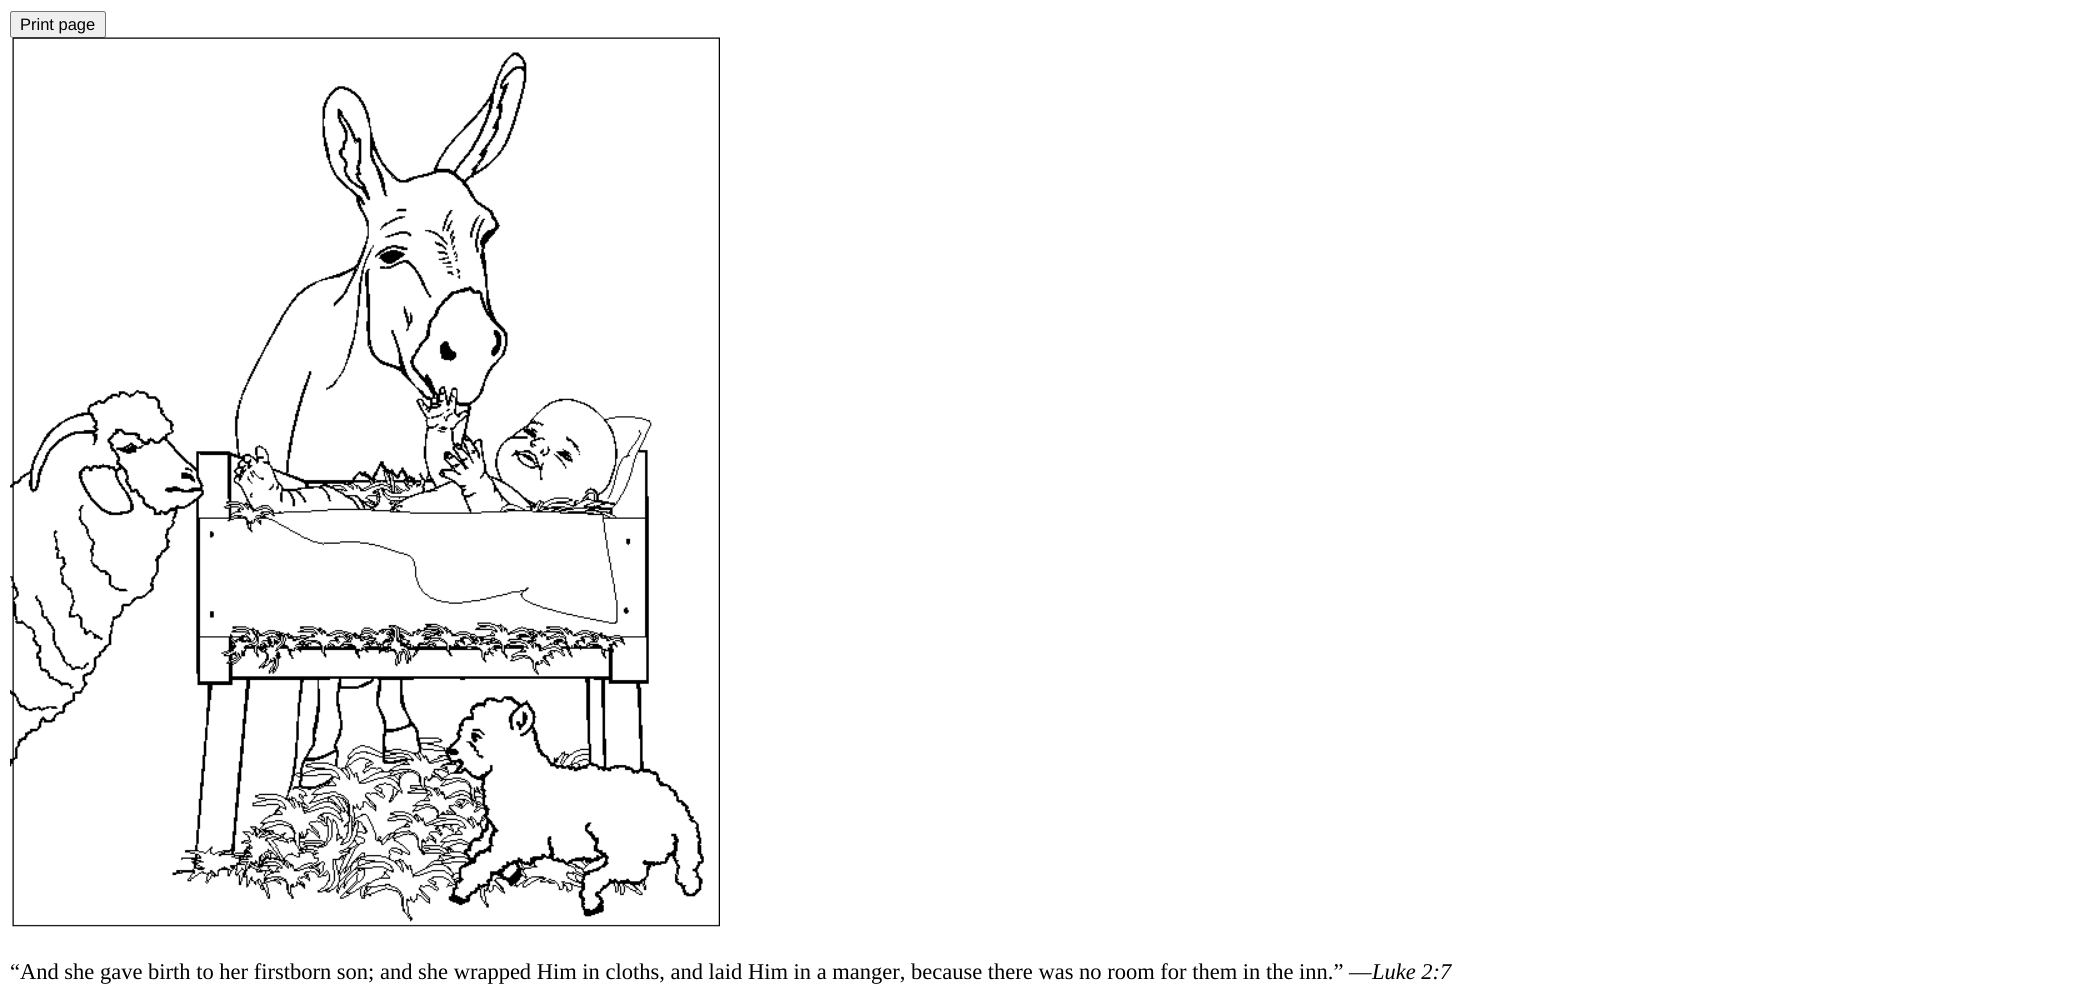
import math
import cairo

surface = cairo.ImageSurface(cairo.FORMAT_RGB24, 2074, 1001)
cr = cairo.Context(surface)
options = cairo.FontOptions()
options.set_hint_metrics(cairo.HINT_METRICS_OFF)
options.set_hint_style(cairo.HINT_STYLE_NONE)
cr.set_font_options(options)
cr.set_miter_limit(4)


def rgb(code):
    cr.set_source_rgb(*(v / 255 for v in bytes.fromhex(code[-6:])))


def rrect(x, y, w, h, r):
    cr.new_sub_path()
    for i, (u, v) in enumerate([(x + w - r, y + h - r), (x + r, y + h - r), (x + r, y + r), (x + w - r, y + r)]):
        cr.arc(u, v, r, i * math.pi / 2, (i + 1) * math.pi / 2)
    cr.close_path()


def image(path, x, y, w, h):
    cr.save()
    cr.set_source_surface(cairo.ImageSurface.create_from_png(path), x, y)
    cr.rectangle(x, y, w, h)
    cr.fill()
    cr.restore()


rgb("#ffffff")
cr.paint()
rgb("#efefef")
rrect(10.5, 11.5, 95, 26, 2)
cr.fill_preserve()
rgb("#767676")
cr.set_line_width(1)
cr.stroke()
image("img/1.png", 10, 37, 710, 890)
cr.select_font_face("Liberation Sans")
cr.set_font_size(16.5)
rgb("#000000")
cr.move_to(20, 30)
cr.show_text("Print page")
cr.select_font_face("Liberation Serif")
cr.set_font_size(22.5)
cr.move_to(10, 979)
cr.show_text("“And she gave birth to her firstborn son; and she wrapped Him in cloths, and laid Him in a manger, because there was no room for them in the inn.” —")
cr.select_font_face("Liberation Serif", cairo.FONT_SLANT_ITALIC)
cr.move_to(1372, 979)
cr.show_text("Luke 2:7")
surface.write_to_png("page.png")
